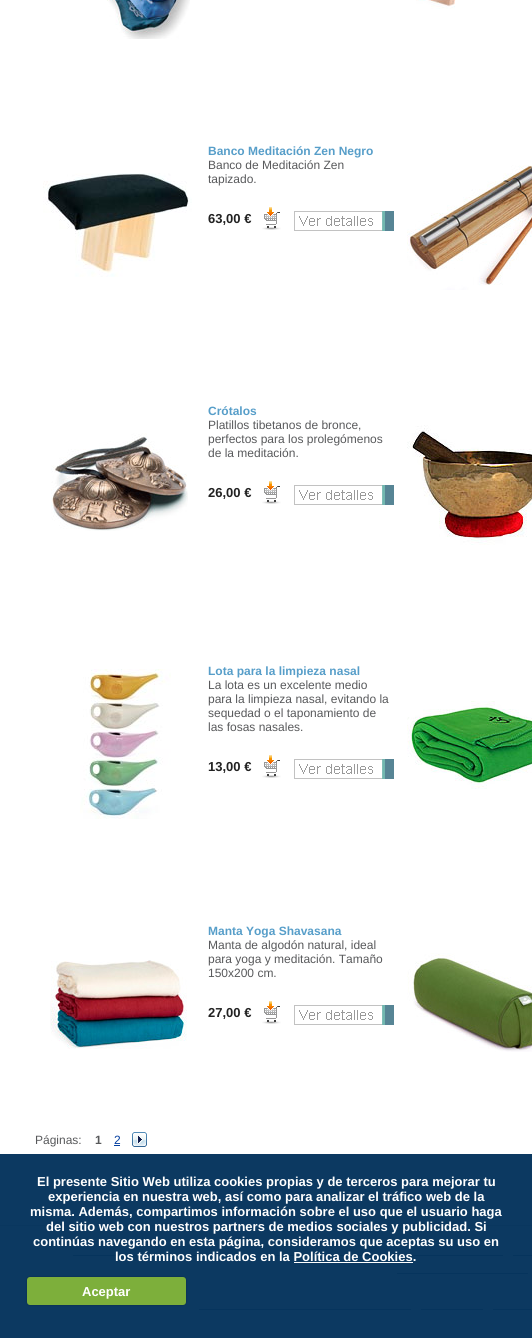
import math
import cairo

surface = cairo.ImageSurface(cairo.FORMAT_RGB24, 532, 1338)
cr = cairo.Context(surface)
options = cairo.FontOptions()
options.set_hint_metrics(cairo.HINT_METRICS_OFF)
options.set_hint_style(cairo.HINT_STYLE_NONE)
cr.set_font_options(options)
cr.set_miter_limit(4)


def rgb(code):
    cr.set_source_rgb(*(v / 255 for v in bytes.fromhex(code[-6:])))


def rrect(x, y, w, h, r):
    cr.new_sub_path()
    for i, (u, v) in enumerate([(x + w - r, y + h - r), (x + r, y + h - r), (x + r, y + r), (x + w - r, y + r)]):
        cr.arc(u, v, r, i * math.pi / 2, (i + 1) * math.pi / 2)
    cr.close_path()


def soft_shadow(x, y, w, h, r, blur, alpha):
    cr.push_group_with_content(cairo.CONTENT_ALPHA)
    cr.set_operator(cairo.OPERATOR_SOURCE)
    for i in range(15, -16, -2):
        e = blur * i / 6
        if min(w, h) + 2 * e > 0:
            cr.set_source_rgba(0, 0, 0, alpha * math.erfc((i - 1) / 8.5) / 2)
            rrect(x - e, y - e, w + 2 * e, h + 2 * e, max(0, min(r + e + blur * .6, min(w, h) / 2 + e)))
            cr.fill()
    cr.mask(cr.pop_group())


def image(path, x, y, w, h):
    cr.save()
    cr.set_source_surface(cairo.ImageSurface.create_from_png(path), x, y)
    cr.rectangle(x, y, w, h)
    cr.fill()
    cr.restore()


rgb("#ffffff")
cr.paint()
rgb("#cccccc")
cr.rectangle(0, 1225, 532, 1)
cr.fill()
image("img/1.png", 107, 0, 83, 39)
image("img/2.png", 416, 0, 40, 9)
image("img/3.png", 43, 173, 149, 104)
image("img/4.png", 262, 207, 19, 23)
image("img/5.png", 294, 211, 100, 20)
image("img/6.png", 407, 165, 125, 125)
image("img/7.png", 51, 433, 137, 98)
image("img/4.png", 262, 481, 19, 23)
image("img/5.png", 294, 485, 100, 20)
image("img/8.png", 407, 425, 125, 120)
image("img/9.png", 80, 669, 91, 150)
image("img/4.png", 262, 755, 19, 23)
image("img/5.png", 294, 759, 100, 20)
image("img/10.png", 407, 701, 125, 88)
image("img/11.png", 50, 960, 137, 89)
image("img/4.png", 262, 1001, 19, 23)
image("img/5.png", 294, 1005, 100, 20)
image("img/12.png", 407, 953, 125, 99)
rgb("#043fa0")
cr.rectangle(114, 1145, 6, 1)
cr.fill()
image("img/13.png", 132, 1132, 15, 15)
rgb("#8797b1")
cr.rectangle(73, 1255, 84, 1)
cr.rectangle(167, 1255, 90, 1)
cr.rectangle(267, 1255, 108, 1)
cr.rectangle(385, 1255, 118, 1)
cr.rectangle(513, 1255, 19, 1)
cr.rectangle(397, 1273, 131, 1)
cr.rectangle(199, 1309, 212, 1)
cr.rectangle(421, 1309, 62, 1)
cr.rectangle(493, 1309, 39, 1)
cr.fill()
cr.set_source_rgba(0, 0.188, 0.353, 0.95)
cr.rectangle(0, 1154, 532, 184)
cr.fill()
rgb("#ffffff")
cr.rectangle(294, 1262, 119, 1)
cr.fill()
rgb("#000000")
soft_shadow(27, 1277, 159, 28, 3, 1, 0.25)
rgb("#7daf3b")
rrect(27, 1277, 159, 28, 3)
cr.fill()
cr.select_font_face("Liberation Sans", cairo.FONT_SLANT_NORMAL, cairo.FONT_WEIGHT_BOLD)
cr.set_font_size(12)
rgb("#579ec9")
cr.move_to(208, 155)
cr.show_text("Banco Meditación Zen Negro")
cr.select_font_face("Liberation Sans")
rgb("#58595b")
cr.move_to(208, 169)
cr.show_text("Banco de Meditación Zen")
cr.move_to(208, 183)
cr.show_text("tapizado.")
cr.select_font_face("Liberation Sans", cairo.FONT_SLANT_NORMAL, cairo.FONT_WEIGHT_BOLD)
cr.set_font_size(13)
rgb("#222222")
cr.move_to(208, 223)
cr.show_text("63,00 €")
cr.set_font_size(12)
rgb("#579ec9")
cr.move_to(208, 415)
cr.show_text("Crótalos")
cr.select_font_face("Liberation Sans")
rgb("#58595b")
for x, y, s in [
    (208, 429, "Platillos tibetanos de bronce,"),
    (208, 443, "perfectos para los prolegómenos"),
    (208, 457, "de la meditación."),
]:
    cr.move_to(x, y)
    cr.show_text(s)
cr.select_font_face("Liberation Sans", cairo.FONT_SLANT_NORMAL, cairo.FONT_WEIGHT_BOLD)
cr.set_font_size(13)
rgb("#222222")
cr.move_to(208, 497)
cr.show_text("26,00 €")
cr.set_font_size(12)
rgb("#579ec9")
cr.move_to(208, 675)
cr.show_text("Lota para la limpieza nasal")
cr.select_font_face("Liberation Sans")
rgb("#58595b")
for x, y, s in [
    (208, 689, "La lota es un excelente medio"),
    (208, 703, "para la limpieza nasal, evitando la"),
    (208, 717, "sequedad o el taponamiento de"),
    (208, 731, "las fosas nasales."),
]:
    cr.move_to(x, y)
    cr.show_text(s)
cr.select_font_face("Liberation Sans", cairo.FONT_SLANT_NORMAL, cairo.FONT_WEIGHT_BOLD)
cr.set_font_size(13)
rgb("#222222")
cr.move_to(208, 771)
cr.show_text("13,00 €")
cr.set_font_size(12)
rgb("#579ec9")
cr.move_to(208, 935)
cr.show_text("Manta Yoga Shavasana")
cr.select_font_face("Liberation Sans")
rgb("#58595b")
for x, y, s in [
    (208, 949, "Manta de algodón natural, ideal"),
    (208, 963, "para yoga y meditación. Tamaño"),
    (208, 977, "150x200 cm."),
]:
    cr.move_to(x, y)
    cr.show_text(s)
cr.select_font_face("Liberation Sans", cairo.FONT_SLANT_NORMAL, cairo.FONT_WEIGHT_BOLD)
cr.set_font_size(13)
rgb("#222222")
cr.move_to(208, 1017)
cr.show_text("27,00 €")
cr.select_font_face("Liberation Sans")
cr.set_font_size(12)
rgb("#58595b")
cr.move_to(35, 1144)
cr.show_text("Páginas:")
cr.select_font_face("Liberation Sans", cairo.FONT_SLANT_NORMAL, cairo.FONT_WEIGHT_BOLD)
cr.move_to(95, 1144)
cr.show_text("1")
cr.select_font_face("Liberation Sans")
rgb("#043fa0")
cr.move_to(114, 1144)
cr.show_text("2")
cr.select_font_face("Liberation Sans", cairo.FONT_SLANT_NORMAL, cairo.FONT_WEIGHT_BOLD)
cr.set_font_size(13)
rgb("#ffffff")
for x, y, s in [
    (37, 1186, "El presente Sitio Web utiliza cookies propias y de terceros para mejorar tu"),
    (48, 1201, "experiencia en nuestra web, así como para analizar el tráfico web de la"),
    (30, 1216, "misma. Además, compartimos información sobre el uso que el usuario haga"),
    (46, 1231, "del sitio web con nuestros partners de medios sociales y publicidad. Si"),
    (33, 1246, "continúas navegando en esta página, consideramos que aceptas su uso en"),
    (115, 1261, "los términos indicados en la Política de Cookies."),
    (82, 1296, "Aceptar"),
]:
    cr.move_to(x, y)
    cr.show_text(s)
surface.write_to_png("page.png")
